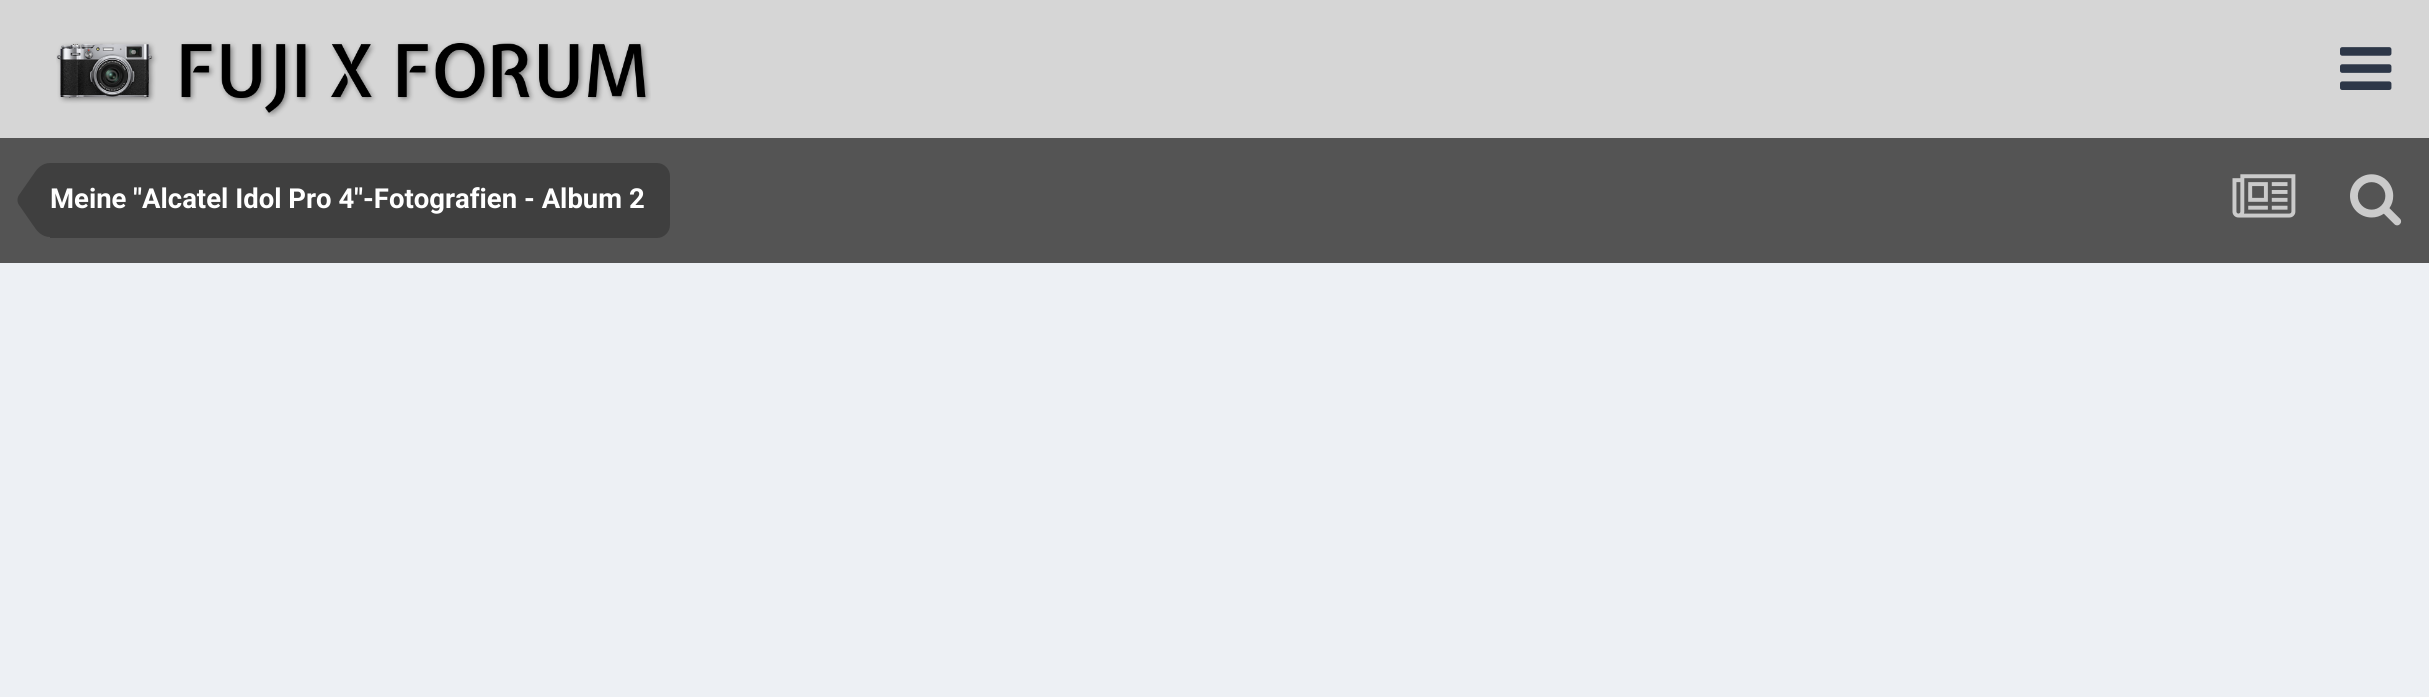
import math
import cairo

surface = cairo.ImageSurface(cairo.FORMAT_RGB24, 2429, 697)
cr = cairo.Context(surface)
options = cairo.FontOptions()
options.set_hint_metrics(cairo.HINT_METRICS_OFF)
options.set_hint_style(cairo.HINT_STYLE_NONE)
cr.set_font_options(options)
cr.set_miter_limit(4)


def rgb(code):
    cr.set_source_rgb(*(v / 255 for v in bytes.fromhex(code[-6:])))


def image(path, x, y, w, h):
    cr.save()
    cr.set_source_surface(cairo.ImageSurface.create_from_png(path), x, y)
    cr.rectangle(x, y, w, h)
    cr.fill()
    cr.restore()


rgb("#edf0f4")
cr.paint()
rgb("#d6d6d6")
cr.rectangle(0, 0, 2429, 138)
cr.fill()
image("img/1.png", 56, 41, 595, 76)
image("img/2.png", 2340, 47, 52, 43)
rgb("#545454")
cr.rectangle(0, 138, 2429, 125)
cr.fill()
rgb("#3f3f3f")
cr.new_path()
cr.move_to(50, 163)
cr.line_to(657, 163)
cr.curve_to(664, 163, 670, 169, 670, 176)
cr.line_to(670, 225)
cr.curve_to(670, 232, 664, 238, 657, 238)
cr.line_to(50, 238)
cr.close_path()
cr.fill()
cr.new_path()
cr.move_to(50, 200)
cr.line_to(50, 237)
cr.curve_to(44.5, 237, 39, 234, 35, 228)
cr.line_to(19, 205)
cr.curve_to(18, 203.5, 17.5, 202, 17.5, 200)
cr.close_path()
cr.fill()
cr.new_path()
cr.move_to(50, 200)
cr.line_to(17.5, 200)
cr.curve_to(17.5, 198, 18, 196.5, 19, 195)
cr.line_to(35, 172)
cr.curve_to(39, 166, 44.5, 163, 50, 163)
cr.close_path()
cr.fill()
image("img/3.png", 2232, 174, 64, 44)
image("img/4.png", 2350, 174, 52, 52)
cr.select_font_face("Roboto", cairo.FONT_SLANT_NORMAL, cairo.FONT_WEIGHT_BOLD)
cr.set_font_size(27.5)
rgb("#ffffff")
cr.move_to(50, 208)
cr.show_text("Meine \"Alcatel Idol Pro 4\"-Fotografien - Album 2")
surface.write_to_png("page.png")
